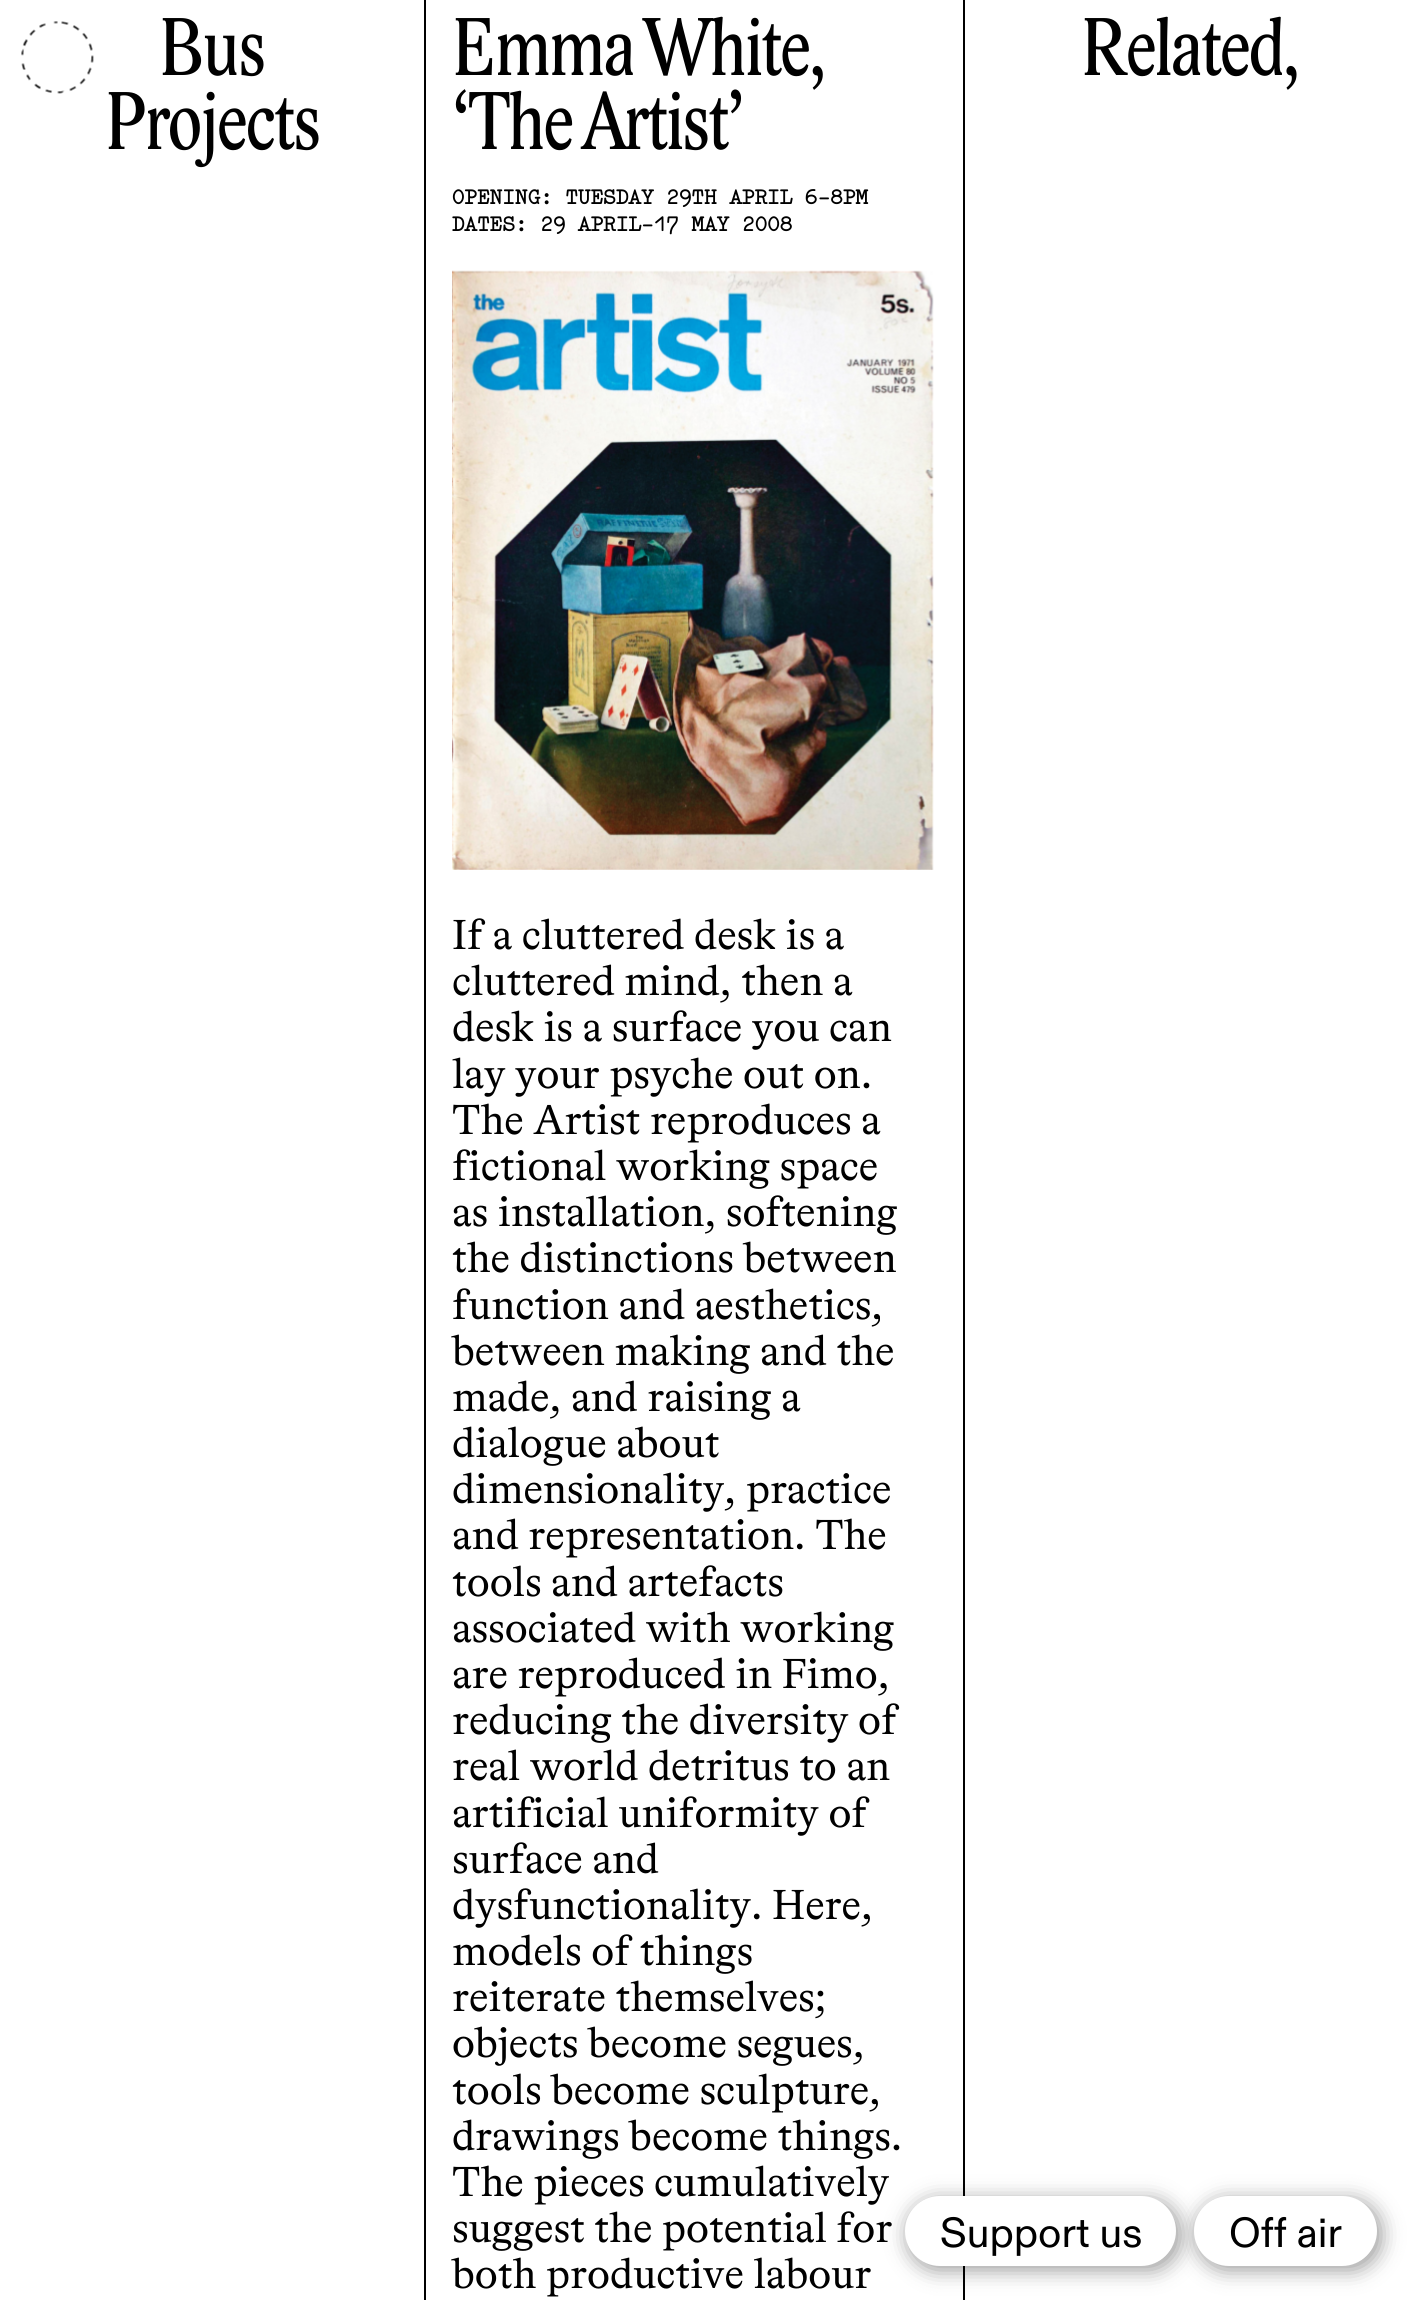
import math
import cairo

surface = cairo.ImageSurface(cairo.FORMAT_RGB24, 1412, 2300)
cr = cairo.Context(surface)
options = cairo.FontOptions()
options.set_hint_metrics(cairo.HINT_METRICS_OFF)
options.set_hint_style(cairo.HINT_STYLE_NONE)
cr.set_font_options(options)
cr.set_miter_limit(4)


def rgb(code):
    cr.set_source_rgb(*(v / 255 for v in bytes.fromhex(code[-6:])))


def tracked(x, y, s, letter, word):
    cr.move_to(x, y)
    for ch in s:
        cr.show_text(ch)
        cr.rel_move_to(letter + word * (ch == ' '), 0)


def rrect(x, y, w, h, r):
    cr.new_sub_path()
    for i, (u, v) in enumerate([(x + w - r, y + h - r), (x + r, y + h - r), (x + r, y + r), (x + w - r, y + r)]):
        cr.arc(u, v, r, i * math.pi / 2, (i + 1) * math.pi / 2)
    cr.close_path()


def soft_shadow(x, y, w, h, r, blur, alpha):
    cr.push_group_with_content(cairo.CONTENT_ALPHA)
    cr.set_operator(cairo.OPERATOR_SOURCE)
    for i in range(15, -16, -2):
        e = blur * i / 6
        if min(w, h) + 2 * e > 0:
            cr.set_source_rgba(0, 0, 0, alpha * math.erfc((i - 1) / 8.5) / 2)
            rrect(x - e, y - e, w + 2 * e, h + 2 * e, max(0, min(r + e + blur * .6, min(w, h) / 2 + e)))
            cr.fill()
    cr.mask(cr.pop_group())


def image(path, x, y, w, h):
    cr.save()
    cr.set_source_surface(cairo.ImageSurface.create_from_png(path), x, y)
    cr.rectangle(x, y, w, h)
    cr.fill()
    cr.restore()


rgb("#ffffff")
cr.paint()
image("img/1.png", 21, 21, 73, 73)
rgb("#000000")
cr.rectangle(424, 0, 2, 2300)
cr.fill()
image("img/2.png", 452, 270, 482, 600)
cr.rectangle(963, 0, 2, 2300)
cr.fill()
rgb("#000000")
soft_shadow(908, 2200, 272, 70, 35, 10.5, 0.4)
rgb("#ffffff")
rrect(905, 2196, 271, 70, 35)
cr.fill()
rgb("#000000")
soft_shadow(1197, 2200, 184, 70, 35, 10.5, 0.4)
rgb("#ffffff")
rrect(1194, 2196, 183, 70, 35)
cr.fill()
cr.select_font_face("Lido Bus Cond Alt")
cr.set_font_size(84)
rgb("#000000")
for x, y, s in [
    (159, 75, "Bus"),
    (105, 149, "Projects"),
    (452, 75, "Emma White,"),
    (452, 149, "‘The Artist’"),
]:
    tracked(x, y, s, -1.75, 0)
cr.select_font_face("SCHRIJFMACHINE", cairo.FONT_SLANT_NORMAL, cairo.FONT_WEIGHT_BOLD)
cr.set_font_size(21)
tracked(452, 204, "OPENING: TUESDAY 29TH APRIL 6-8PM", -0.2, 0)
tracked(452, 231, "DATES: 29 APRIL-17 MAY 2008", -0.2, 0)
cr.select_font_face("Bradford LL")
cr.set_font_size(42)
for x, y, s in [
    (452, 949, "If a cluttered desk is a"),
    (452, 995, "cluttered mind, then a"),
    (452, 1041, "desk is a surface you can"),
    (452, 1088, "lay your psyche out on."),
    (452, 1134, "The Artist reproduces a"),
    (452, 1180, "fictional working space"),
    (452, 1226, "as installation, softening"),
    (452, 1272, "the distinctions between"),
    (452, 1319, "function and aesthetics,"),
    (452, 1365, "between making and the"),
    (452, 1411, "made, and raising a"),
    (452, 1457, "dialogue about"),
    (452, 1503, "dimensionality, practice"),
    (452, 1549, "and representation. The"),
    (452, 1596, "tools and artefacts"),
    (452, 1642, "associated with working"),
    (452, 1688, "are reproduced in Fimo,"),
    (452, 1734, "reducing the diversity of"),
    (452, 1780, "real world detritus to an"),
    (452, 1827, "artificial uniformity of"),
    (452, 1873, "surface and"),
    (452, 1919, "dysfunctionality. Here,"),
    (452, 1965, "models of things"),
    (452, 2011, "reiterate themselves;"),
    (452, 2057, "objects become segues,"),
    (452, 2104, "tools become sculpture,"),
    (452, 2150, "drawings become things."),
    (452, 2196, "The pieces cumulatively"),
    (452, 2242, "suggest the potential for"),
    (452, 2288, "both productive labour"),
]:
    cr.move_to(x, y)
    cr.show_text(s)
cr.select_font_face("Lido Bus Cond Alt")
cr.set_font_size(84)
tracked(1081, 75, "Related,", -1.75, 0)
cr.select_font_face("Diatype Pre")
cr.set_font_size(42)
cr.move_to(940, 2247)
cr.show_text("Support us")
cr.move_to(1229, 2247)
cr.show_text("Off air")
surface.write_to_png("page.png")
